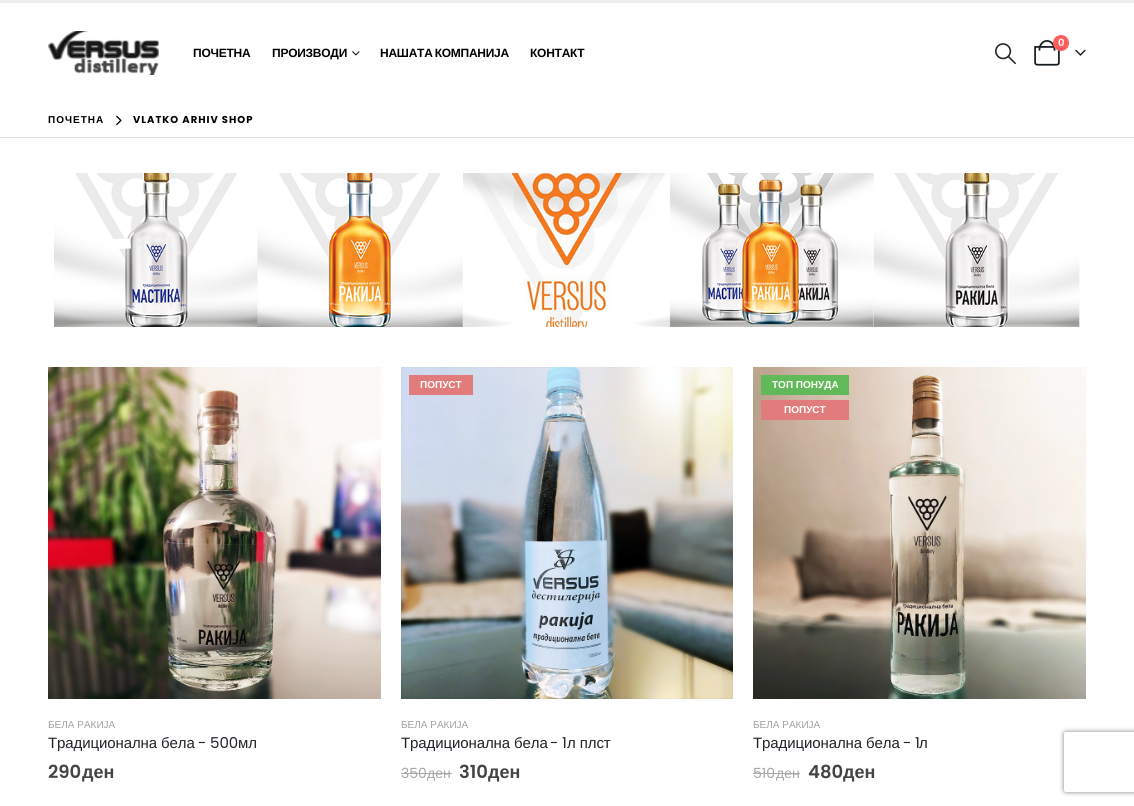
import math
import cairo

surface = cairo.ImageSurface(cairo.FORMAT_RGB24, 1134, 806)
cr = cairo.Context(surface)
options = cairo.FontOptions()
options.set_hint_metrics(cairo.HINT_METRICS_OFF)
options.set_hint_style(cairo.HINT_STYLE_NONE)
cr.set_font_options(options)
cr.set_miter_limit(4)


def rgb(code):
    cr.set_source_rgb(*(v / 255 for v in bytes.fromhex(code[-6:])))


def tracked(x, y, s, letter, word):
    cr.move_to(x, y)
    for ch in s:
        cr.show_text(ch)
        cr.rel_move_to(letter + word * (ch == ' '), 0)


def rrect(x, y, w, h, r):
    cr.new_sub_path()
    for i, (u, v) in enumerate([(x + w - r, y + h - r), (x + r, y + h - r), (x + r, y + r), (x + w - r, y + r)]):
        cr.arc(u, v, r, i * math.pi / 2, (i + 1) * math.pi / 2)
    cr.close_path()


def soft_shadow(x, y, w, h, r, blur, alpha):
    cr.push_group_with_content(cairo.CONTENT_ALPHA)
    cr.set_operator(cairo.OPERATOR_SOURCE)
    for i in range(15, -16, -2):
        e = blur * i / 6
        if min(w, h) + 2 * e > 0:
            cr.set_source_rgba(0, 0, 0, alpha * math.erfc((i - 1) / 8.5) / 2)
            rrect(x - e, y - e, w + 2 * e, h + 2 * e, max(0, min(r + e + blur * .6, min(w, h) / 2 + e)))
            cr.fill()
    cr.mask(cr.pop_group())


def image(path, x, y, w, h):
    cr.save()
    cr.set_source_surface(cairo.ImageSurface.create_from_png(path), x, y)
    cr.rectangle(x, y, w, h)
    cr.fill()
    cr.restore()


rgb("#ffffff")
cr.paint()
rgb("#ededed")
cr.rectangle(0, 0, 1134, 3)
cr.fill()
image("img/1.png", 1034, 40, 26, 26)
rgb("#ff5b5b")
cr.arc(1061, 43, 8, 0, 2 * math.pi)
cr.fill()
image("img/2.png", 1075, 49, 11, 7)
image("img/3.png", 995, 43, 21, 22)
image("img/4.png", 48, 31, 111, 44)
image("img/5.png", 352, 51, 8, 5)
rgb("#dfdfdf")
cr.rectangle(0, 137, 1134, 1)
cr.fill()
image("img/6.png", 116, 115, 6, 11)
image("img/7.png", 48, 173, 1038, 154)
rgb("#ffffff")
cr.new_path()
cr.move_to(110.5, 239)
cr.line_to(130.5, 238.5)
cr.line_to(131, 248.5)
cr.line_to(111, 249)
cr.close_path()
cr.fill()
image("img/8.png", 48, 367, 333, 332)
image("img/9.png", 401, 367, 332, 332)
for x, y, w, h, color in [
    (409, 375, 64, 20, "#e27c7c"),
    (401, 773, 26, 1, "#a7a7a7"),
    (427, 773, 25, 1, "#a7a7a7"),
]:
    rgb(color)
    cr.rectangle(x, y, w, h)
    cr.fill()
image("img/10.png", 753, 367, 333, 332)
for x, y, w, h, color in [
    (761, 375, 88, 20, "#62b959"),
    (761, 400, 88, 20, "#e27c7c"),
    (753, 773, 23, 1, "#a7a7a7"),
    (776, 773, 24, 1, "#a7a7a7"),
]:
    rgb(color)
    cr.rectangle(x, y, w, h)
    cr.fill()
cr.save()
cr.set_fill_rule(cairo.FILL_RULE_EVEN_ODD)
cr.new_path()
cr.move_to(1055, 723)
cr.line_to(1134, 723)
cr.line_to(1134, 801)
cr.line_to(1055, 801)
cr.close_path()
cr.move_to(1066, 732)
cr.line_to(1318, 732)
cr.curve_to(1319, 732, 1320, 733, 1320, 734)
cr.line_to(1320, 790)
cr.curve_to(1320, 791, 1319, 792, 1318, 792)
cr.line_to(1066, 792)
cr.curve_to(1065, 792, 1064, 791, 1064, 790)
cr.line_to(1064, 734)
cr.curve_to(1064, 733, 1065, 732, 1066, 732)
cr.close_path()
cr.clip()
rgb("#808080")
soft_shadow(1064, 732, 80, 60, 2, 2.5, 1)
cr.restore()
cr.select_font_face("Poppins SemiBold")
cr.set_font_size(10)
rgb("#ffffff")
cr.move_to(1058, 46)
cr.show_text("0")
cr.select_font_face("Liberation Sans", cairo.FONT_SLANT_NORMAL, cairo.FONT_WEIGHT_BOLD)
cr.set_font_size(12)
rgb("#000000")
tracked(193, 57, "ПОЧЕТНА", -0.25, 0)
tracked(272, 57, "ПРОИЗВОДИ", -0.25, 0)
tracked(380, 57, "НАШАТА КОМПАНИЈА", -0.25, -1)
tracked(530, 57, "КОНТАКТ", -0.25, 0)
cr.set_font_size(10)
tracked(48, 123, "ПОЧЕТНА", 1, 0)
cr.select_font_face("Poppins", cairo.FONT_SLANT_NORMAL, cairo.FONT_WEIGHT_BOLD)
tracked(133, 123, "VLATKO ARHIV SHOP", 1, 0)
cr.select_font_face("Liberation Sans")
rgb("#a0a0a0")
cr.move_to(48, 728)
cr.show_text("БЕЛА РАКИЈА")
cr.set_font_size(15)
rgb("#222329")
tracked(48, 748, "Традиционална бела", -0.1, 0)
cr.select_font_face("Poppins")
tracked(198, 748, "- 500", -0.1, 0)
cr.select_font_face("Liberation Sans")
tracked(238, 748, "мл", -0.1, 0)
cr.select_font_face("Poppins SemiBold")
cr.set_font_size(18)
rgb("#444444")
cr.move_to(48, 778)
cr.show_text("290")
cr.select_font_face("Liberation Sans", cairo.FONT_SLANT_NORMAL, cairo.FONT_WEIGHT_BOLD)
cr.move_to(82, 778)
cr.show_text("ден")
cr.set_font_size(10)
rgb("#ffffff")
cr.move_to(420, 388)
cr.show_text("ПОПУСТ")
cr.select_font_face("Liberation Sans")
rgb("#a0a0a0")
cr.move_to(401, 728)
cr.show_text("БЕЛА РАКИЈА")
cr.set_font_size(15)
rgb("#222329")
tracked(401, 748, "Традиционална бела", -0.1, 0)
cr.select_font_face("Poppins")
tracked(550, 748, "- 1", -0.1, 0)
cr.select_font_face("Liberation Sans")
tracked(567, 748, "л плст", -0.1, 0)
cr.select_font_face("Poppins")
cr.set_font_size(14)
rgb("#a7a7a7")
cr.move_to(401, 778)
cr.show_text("350")
cr.select_font_face("Liberation Sans")
cr.move_to(427, 778)
cr.show_text("ден")
cr.select_font_face("Poppins SemiBold")
cr.set_font_size(18)
rgb("#444444")
cr.move_to(459, 778)
cr.show_text("310")
cr.select_font_face("Liberation Sans", cairo.FONT_SLANT_NORMAL, cairo.FONT_WEIGHT_BOLD)
cr.move_to(488, 778)
cr.show_text("ден")
cr.set_font_size(10)
rgb("#ffffff")
cr.move_to(772, 388)
cr.show_text("ТОП ПОНУДА")
cr.move_to(784, 413)
cr.show_text("ПОПУСТ")
cr.select_font_face("Liberation Sans")
rgb("#a0a0a0")
cr.move_to(753, 728)
cr.show_text("БЕЛА РАКИЈА")
cr.set_font_size(15)
rgb("#222329")
tracked(753, 748, "Традиционална бела", -0.1, 0)
cr.select_font_face("Poppins")
tracked(903, 748, "- 1", -0.1, 0)
cr.select_font_face("Liberation Sans")
tracked(919, 748, "л", -0.1, 0)
cr.select_font_face("Poppins")
cr.set_font_size(14)
rgb("#a7a7a7")
cr.move_to(753, 778)
cr.show_text("510")
cr.select_font_face("Liberation Sans")
cr.move_to(776, 778)
cr.show_text("ден")
cr.select_font_face("Poppins SemiBold")
cr.set_font_size(18)
rgb("#444444")
cr.move_to(808, 778)
cr.show_text("480")
cr.select_font_face("Liberation Sans", cairo.FONT_SLANT_NORMAL, cairo.FONT_WEIGHT_BOLD)
cr.move_to(843, 778)
cr.show_text("ден")
surface.write_to_png("page.png")
